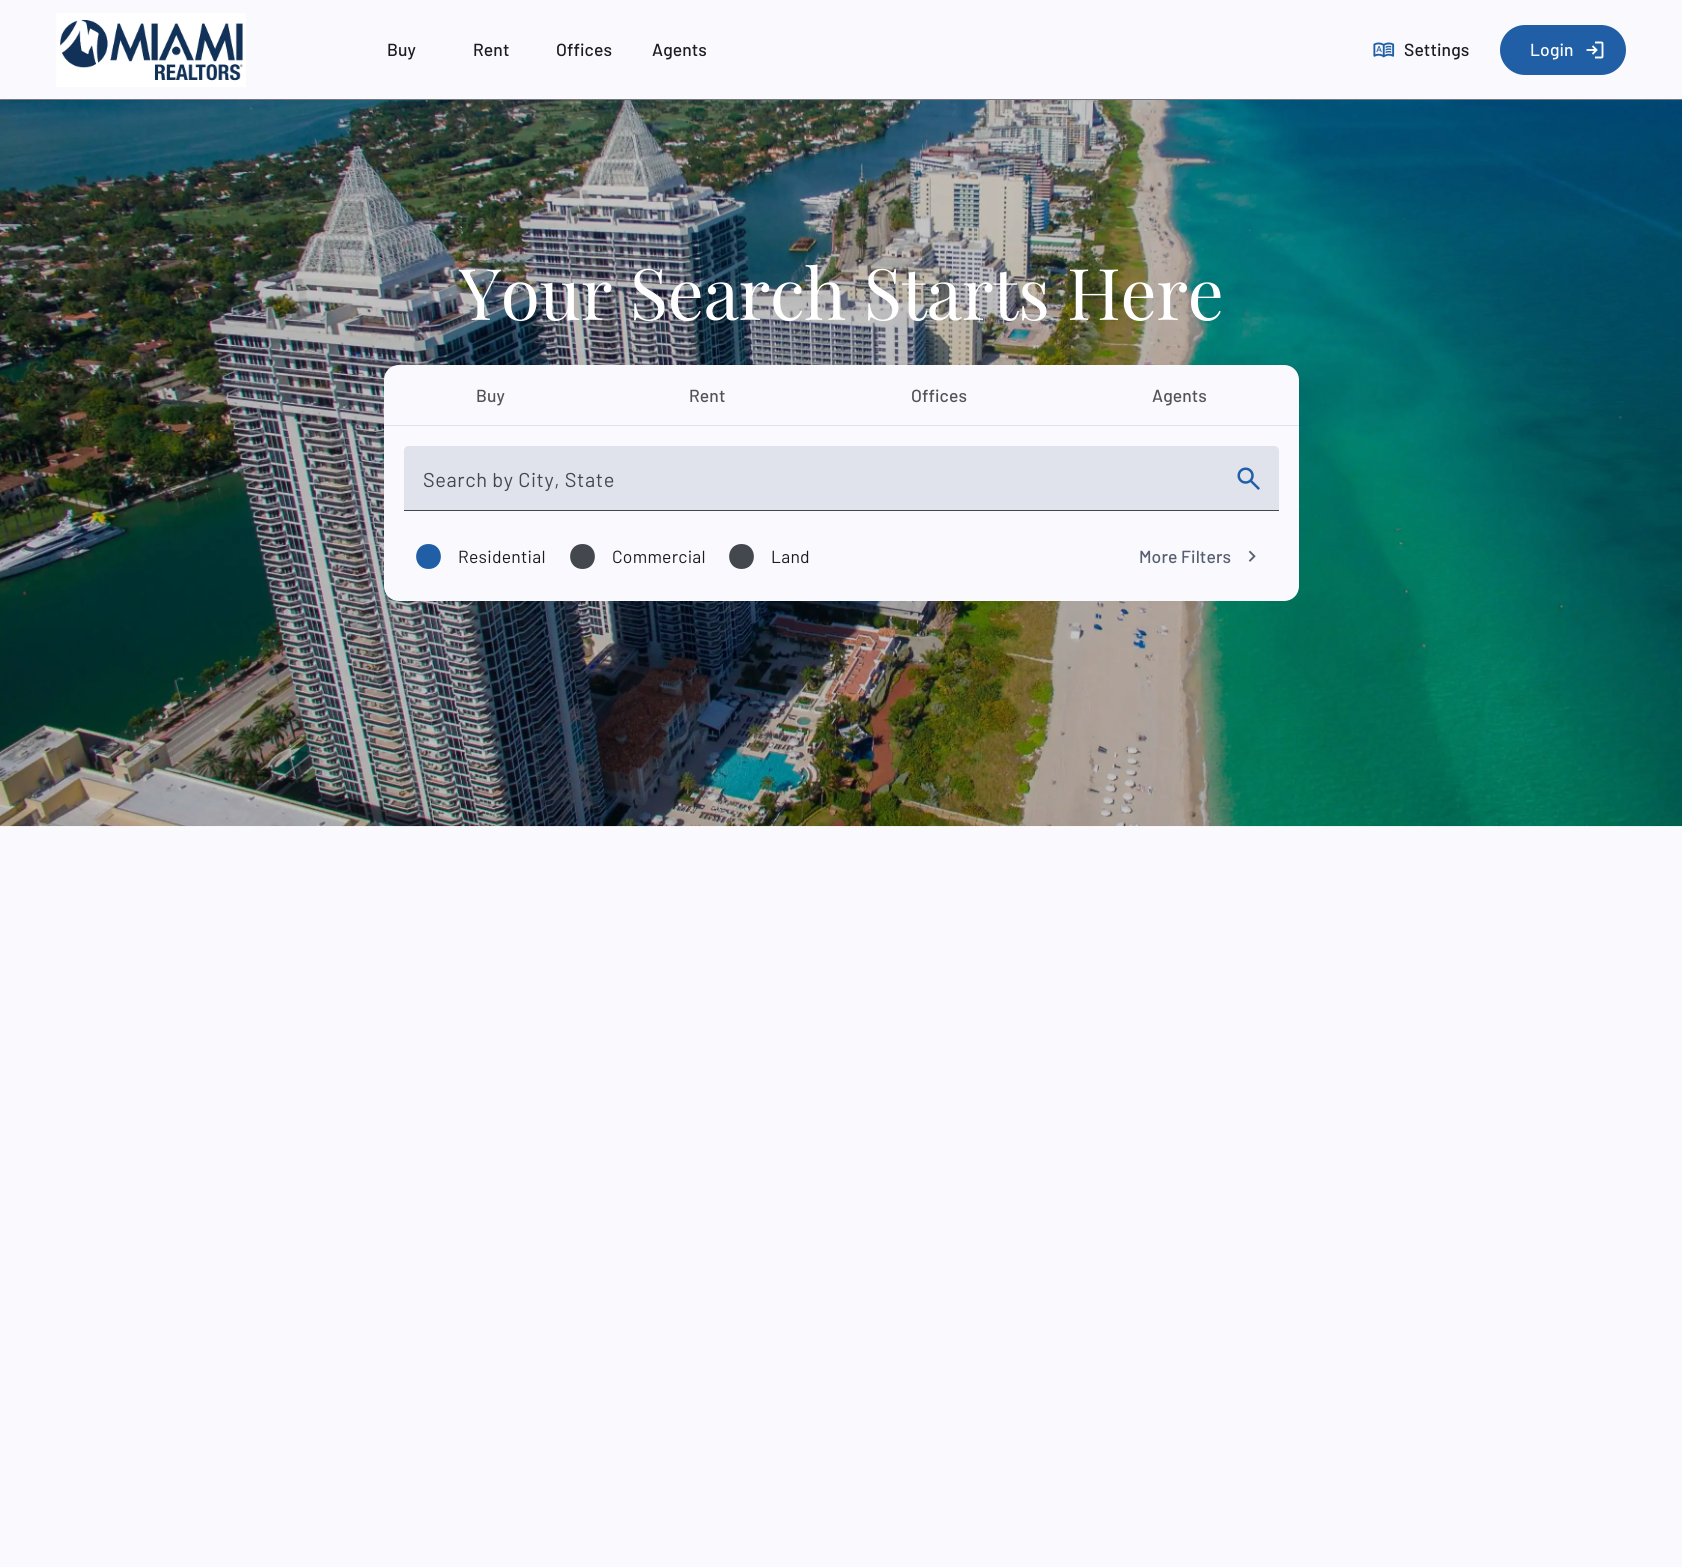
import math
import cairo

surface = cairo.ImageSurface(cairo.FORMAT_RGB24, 1682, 1567)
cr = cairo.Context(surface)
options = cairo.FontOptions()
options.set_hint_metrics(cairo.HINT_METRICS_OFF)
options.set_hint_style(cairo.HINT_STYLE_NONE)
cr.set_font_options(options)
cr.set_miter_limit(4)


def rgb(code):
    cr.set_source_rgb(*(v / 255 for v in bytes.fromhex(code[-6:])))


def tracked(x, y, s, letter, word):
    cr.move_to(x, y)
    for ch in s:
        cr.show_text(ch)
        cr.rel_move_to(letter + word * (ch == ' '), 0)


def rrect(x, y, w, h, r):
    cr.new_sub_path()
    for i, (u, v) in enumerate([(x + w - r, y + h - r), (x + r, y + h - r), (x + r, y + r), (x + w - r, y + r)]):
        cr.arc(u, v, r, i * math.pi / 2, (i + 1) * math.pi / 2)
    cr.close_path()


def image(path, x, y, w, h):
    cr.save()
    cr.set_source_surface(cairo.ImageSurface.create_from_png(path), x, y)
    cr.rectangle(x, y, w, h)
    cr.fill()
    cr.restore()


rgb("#faf9fd")
cr.paint()
rgb("#74777f")
cr.rectangle(0, 99, 1682, 1)
cr.fill()
image("img/1.png", 56, 13, 190, 74)
image("img/2.png", 1373, 42, 22, 16)
rgb("#205fa6")
rrect(1500, 25, 126, 50, 25)
cr.fill()
image("img/3.png", 1586, 41, 18, 18)
image("img/4.png", 0, 100, 1682, 727)
rgb("#faf9fd")
cr.new_path()
cr.move_to(399, 365)
cr.line_to(1284, 365)
cr.curve_to(1292.5, 365, 1299, 371.5, 1299, 380)
cr.line_to(1299, 426)
cr.line_to(384, 426)
cr.line_to(384, 380)
cr.curve_to(384, 371.5, 390.5, 365, 399, 365)
cr.close_path()
cr.fill()
rgb("#e0e2ec")
cr.rectangle(384, 425, 915, 1)
cr.fill()
rgb("#faf9fd")
cr.new_path()
cr.move_to(384, 426)
cr.line_to(1299, 426)
cr.line_to(1299, 586)
cr.curve_to(1299, 594.5, 1292.5, 601, 1284, 601)
cr.line_to(399, 601)
cr.curve_to(390.5, 601, 384, 594.5, 384, 586)
cr.close_path()
cr.fill()
rgb("#e0e2ec")
cr.new_path()
cr.move_to(409, 446)
cr.line_to(1274, 446)
cr.curve_to(1277, 446, 1279, 448, 1279, 451)
cr.line_to(1279, 511)
cr.line_to(404, 511)
cr.line_to(404, 451)
cr.curve_to(404, 448, 406, 446, 409, 446)
cr.close_path()
cr.fill()
image("img/5.png", 1237, 467, 23, 23)
rgb("#43474e")
cr.rectangle(404, 510, 875, 1)
cr.fill()
rgb("#205fa6")
cr.new_path()
cr.move_to(428.5, 544)
cr.curve_to(445, 544, 445, 569, 428.5, 569)
cr.curve_to(412, 569, 412, 544, 428.5, 544)
cr.close_path()
cr.fill()
rgb("#43474e")
cr.new_path()
cr.move_to(582.5, 544)
cr.curve_to(599, 544, 599, 569, 582.5, 569)
cr.curve_to(566, 569, 566, 544, 582.5, 544)
cr.close_path()
cr.fill()
cr.new_path()
cr.move_to(741.5, 544)
cr.curve_to(758, 544, 758, 569, 741.5, 569)
cr.curve_to(725, 569, 725, 544, 741.5, 544)
cr.close_path()
cr.fill()
image("img/6.png", 1248, 550, 8, 12)
cr.select_font_face("Barlow Medium")
cr.set_font_size(17.5)
rgb("#1a1c1e")
for x, y, s in [
    (387, 56, "Buy"),
    (473, 56, "Rent"),
    (556, 56, "Offices"),
    (652, 56, "Agents"),
    (1404, 56, "Settings"),
]:
    tracked(x, y, s, 0.1, 0)
rgb("#ffffff")
tracked(1530, 56, "Login", 0.1, 0)
cr.select_font_face("Playfair Display")
cr.set_font_size(71.25)
tracked(459, 320, "Your Search Starts Here", -0.3, 0)
cr.select_font_face("Barlow Medium")
cr.set_font_size(17.5)
rgb("#525356")
for x, y, s in [
    (476, 402, "Buy"),
    (689, 402, "Rent"),
    (911, 402, "Offices"),
    (1152, 402, "Agents"),
]:
    tracked(x, y, s, 0.1, 0)
cr.select_font_face("Barlow")
cr.set_font_size(20)
rgb("#43474e")
tracked(423, 487, "Search by City, State", 0.6, 0)
cr.set_font_size(17.5)
rgb("#1a1c1e")
for x, y, s in [
    (458, 563, "Residential"),
    (612, 563, "Commercial"),
    (771, 563, "Land"),
]:
    tracked(x, y, s, 0.25, 0)
cr.select_font_face("Barlow Medium")
rgb("#555f71")
tracked(1139, 563, "More Filters", 0.1, 0)
surface.write_to_png("page.png")
